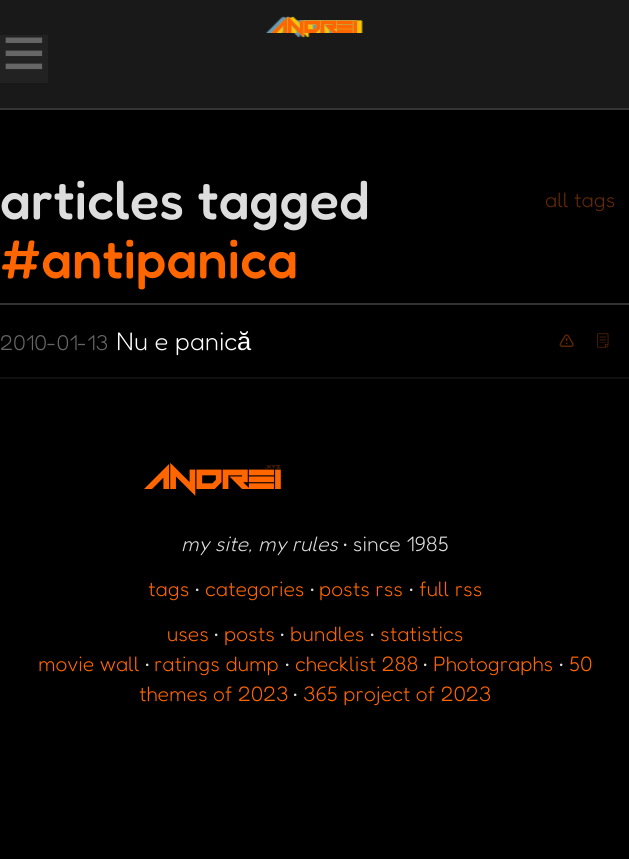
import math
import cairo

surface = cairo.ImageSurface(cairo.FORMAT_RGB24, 629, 859)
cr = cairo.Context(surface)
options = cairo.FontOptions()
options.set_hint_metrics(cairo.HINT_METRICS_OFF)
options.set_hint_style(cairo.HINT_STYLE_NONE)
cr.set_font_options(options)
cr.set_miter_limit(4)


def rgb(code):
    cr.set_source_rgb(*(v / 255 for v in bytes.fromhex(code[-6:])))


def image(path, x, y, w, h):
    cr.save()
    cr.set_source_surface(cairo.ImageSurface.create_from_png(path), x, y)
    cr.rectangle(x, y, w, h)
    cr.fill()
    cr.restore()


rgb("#000000")
cr.paint()
rgb("#333333")
cr.rectangle(0, 108, 629, 2)
cr.fill()
rgb("#191919")
cr.rectangle(0, 0, 629, 108)
cr.fill()
image("img/1.png", 266, 16, 97, 22)
for x, y, w, h, color in [
    (0, 35, 48, 48, "#222222"),
    (0, 303, 629, 2, "#333333"),
    (0, 377, 629, 2, "#111111"),
]:
    rgb(color)
    cr.rectangle(x, y, w, h)
    cr.fill()
image("img/2.png", 559, 334, 15, 13)
image("img/3.png", 597, 333, 12, 15)
image("img/4.png", 144, 463, 137, 33)
cr.select_font_face("Liberation Sans")
cr.set_font_size(75)
rgb("#666666")
cr.move_to(2, 78)
cr.show_text("≡")
cr.select_font_face("Fredoka Medium")
cr.set_font_size(54)
rgb("#dddddd")
cr.move_to(0, 219)
cr.show_text("articles tagged")
rgb("#ff6600")
cr.move_to(0, 278)
cr.show_text("#antipanica")
cr.select_font_face("Fredoka Light")
cr.set_font_size(21)
rgb("#662900")
cr.move_to(545, 207)
cr.show_text("all tags")
cr.set_font_size(21.5)
rgb("#666666")
cr.move_to(0, 350)
cr.show_text("2010-01-13")
cr.set_font_size(25.5)
rgb("#ffffff")
cr.move_to(116, 350)
cr.show_text("Nu e panic")
cr.select_font_face("Liberation Sans")
cr.move_to(237, 350)
cr.show_text("ă")
cr.select_font_face("Fredoka Light", cairo.FONT_SLANT_ITALIC)
cr.set_font_size(21)
rgb("#dddddd")
cr.move_to(181, 551)
cr.show_text("my site, my rules")
cr.select_font_face("Fredoka Light")
cr.move_to(343, 551)
cr.show_text("• since 1985")
rgb("#ff6600")
cr.move_to(148, 596)
cr.show_text("tags")
rgb("#dddddd")
cr.move_to(195, 596)
cr.show_text("•")
rgb("#ff6600")
cr.move_to(205, 596)
cr.show_text("categories")
rgb("#dddddd")
cr.move_to(310, 596)
cr.show_text("•")
rgb("#ff6600")
cr.move_to(319, 596)
cr.show_text("posts rss")
rgb("#dddddd")
cr.move_to(409, 596)
cr.show_text("•")
rgb("#ff6600")
cr.move_to(419, 596)
cr.show_text("full rss")
cr.move_to(167, 641)
cr.show_text("uses")
rgb("#dddddd")
cr.move_to(214, 641)
cr.show_text("•")
rgb("#ff6600")
cr.move_to(224, 641)
cr.show_text("posts")
rgb("#dddddd")
cr.move_to(280, 641)
cr.show_text("•")
rgb("#ff6600")
cr.move_to(290, 641)
cr.show_text("bundles")
rgb("#dddddd")
cr.move_to(370, 641)
cr.show_text("•")
rgb("#ff6600")
cr.move_to(380, 641)
cr.show_text("statistics")
cr.move_to(38, 671)
cr.show_text("movie wall")
rgb("#dddddd")
cr.move_to(145, 671)
cr.show_text("•")
rgb("#ff6600")
cr.move_to(154, 671)
cr.show_text("ratings dump")
rgb("#dddddd")
cr.move_to(285, 671)
cr.show_text("•")
rgb("#ff6600")
cr.move_to(295, 671)
cr.show_text("checklist 288")
rgb("#dddddd")
cr.move_to(423, 671)
cr.show_text("•")
rgb("#ff6600")
cr.move_to(433, 671)
cr.show_text("Photographs")
rgb("#dddddd")
cr.move_to(559, 671)
cr.show_text("•")
rgb("#ff6600")
cr.move_to(569, 671)
cr.show_text("50")
cr.move_to(139, 701)
cr.show_text("themes of 2023")
rgb("#dddddd")
cr.move_to(293, 701)
cr.show_text("•")
rgb("#ff6600")
cr.move_to(303, 701)
cr.show_text("365 project of 2023")
surface.write_to_png("page.png")
